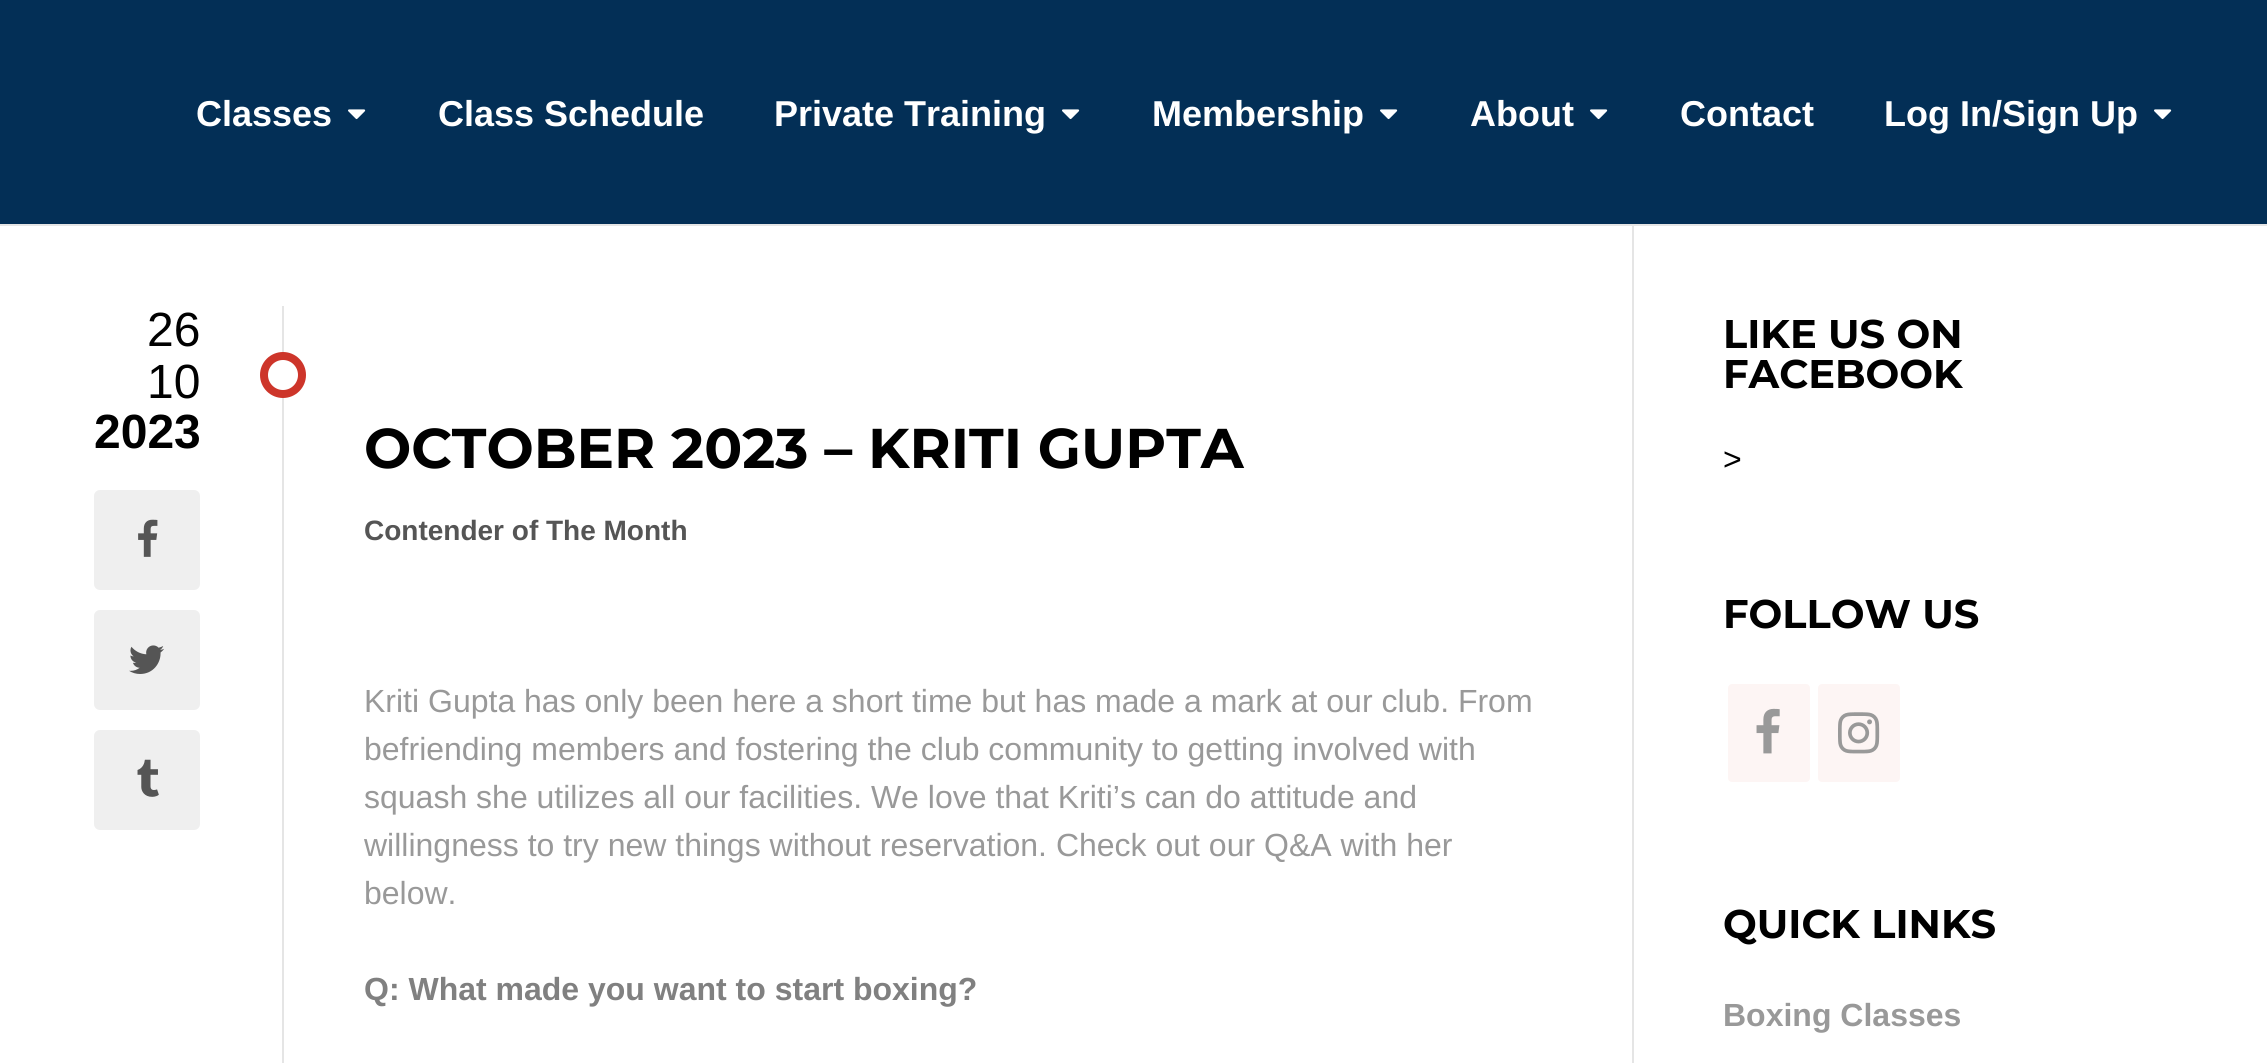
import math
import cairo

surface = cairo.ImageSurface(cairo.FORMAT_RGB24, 2267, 1063)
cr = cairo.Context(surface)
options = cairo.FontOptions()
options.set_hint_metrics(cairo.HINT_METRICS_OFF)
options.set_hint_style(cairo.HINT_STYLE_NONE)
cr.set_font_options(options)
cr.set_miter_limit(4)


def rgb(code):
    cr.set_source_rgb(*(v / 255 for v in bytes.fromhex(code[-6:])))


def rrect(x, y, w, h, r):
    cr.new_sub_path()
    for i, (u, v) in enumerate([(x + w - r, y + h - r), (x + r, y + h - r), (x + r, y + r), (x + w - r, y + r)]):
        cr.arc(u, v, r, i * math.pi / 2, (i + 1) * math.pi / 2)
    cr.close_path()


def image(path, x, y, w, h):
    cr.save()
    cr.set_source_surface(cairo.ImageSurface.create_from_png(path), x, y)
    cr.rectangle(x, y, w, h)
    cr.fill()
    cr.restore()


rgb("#ffffff")
cr.paint()
rgb("#032f56")
cr.rectangle(0, 0, 2267, 224)
cr.fill()
rgb("#e5e5e5")
cr.rectangle(0, 224, 2267, 2)
cr.fill()
image("img/1.png", 348, 109, 18, 11)
image("img/1.png", 1062, 109, 18, 11)
image("img/1.png", 1380, 109, 18, 11)
image("img/1.png", 1590, 109, 18, 11)
image("img/1.png", 2154, 109, 18, 11)
cr.rectangle(1632, 226, 2, 837)
cr.fill()
cr.rectangle(282, 306, 2, 757)
cr.fill()
rgb("#ffffff")
cr.arc(283, 375, 19, 0, 2 * math.pi)
cr.fill_preserve()
rgb("#cd352a")
cr.set_line_width(8)
cr.stroke()
rgb("#efefef")
rrect(94, 490, 106, 100, 6)
cr.fill()
image("img/2.png", 138, 519, 20, 38)
rrect(94, 610, 106, 100, 6)
cr.fill()
image("img/3.png", 129, 645, 35, 29)
rrect(94, 730, 106, 100, 6)
cr.fill()
image("img/4.png", 137, 759, 22, 38)
rgb("#fdf5f4")
rrect(1728, 684, 82, 98, 4)
cr.fill()
image("img/5.png", 1756, 708, 24, 46)
rrect(1818, 684, 82, 98, 4)
cr.fill()
image("img/6.png", 1838, 712, 42, 42)
cr.select_font_face("Liberation Sans", cairo.FONT_SLANT_NORMAL, cairo.FONT_WEIGHT_BOLD)
cr.set_font_size(36)
rgb("#ffffff")
for x, y, s in [
    (196, 126, "Classes"),
    (438, 126, "Class Schedule"),
    (774, 126, "Private Training"),
    (1152, 126, "Membership"),
    (1470, 126, "About"),
    (1680, 126, "Contact"),
    (1884, 126, "Log In/Sign Up"),
]:
    cr.move_to(x, y)
    cr.show_text(s)
cr.select_font_face("Liberation Sans")
cr.set_font_size(48)
rgb("#000000")
cr.move_to(147, 346)
cr.show_text("26")
cr.move_to(147, 398)
cr.show_text("10")
cr.select_font_face("Liberation Sans", cairo.FONT_SLANT_NORMAL, cairo.FONT_WEIGHT_BOLD)
cr.move_to(94, 448)
cr.show_text("2023")
cr.select_font_face("Montserrat", cairo.FONT_SLANT_NORMAL, cairo.FONT_WEIGHT_BOLD)
cr.set_font_size(56)
cr.move_to(364, 468)
cr.show_text("OCTOBER 2023 – KRITI GUPTA")
cr.select_font_face("Liberation Sans", cairo.FONT_SLANT_NORMAL, cairo.FONT_WEIGHT_BOLD)
cr.set_font_size(28)
rgb("#555555")
cr.move_to(364, 540)
cr.show_text("Contender of The Month")
cr.select_font_face("Liberation Sans")
cr.set_font_size(32)
rgb("#999999")
for x, y, s in [
    (364, 712, "Kriti Gupta has only been here a short time but has made a mark at our club. From"),
    (364, 760, "befriending members and fostering the club community to getting involved with"),
    (364, 808, "squash she utilizes all our facilities. We love that Kriti’s can do attitude and"),
    (364, 856, "willingness to try new things without reservation. Check out our Q&A with her"),
    (364, 904, "below."),
]:
    cr.move_to(x, y)
    cr.show_text(s)
cr.select_font_face("Liberation Sans", cairo.FONT_SLANT_NORMAL, cairo.FONT_WEIGHT_BOLD)
rgb("#808080")
cr.move_to(364, 1000)
cr.show_text("Q: What made you want to start boxing?")
cr.select_font_face("Montserrat", cairo.FONT_SLANT_NORMAL, cairo.FONT_WEIGHT_BOLD)
cr.set_font_size(40)
rgb("#000000")
cr.move_to(1723, 348)
cr.show_text("LIKE US ON")
cr.move_to(1723, 388)
cr.show_text("FACEBOOK")
cr.select_font_face("Liberation Sans")
cr.set_font_size(32)
cr.move_to(1723, 470)
cr.show_text(">")
cr.select_font_face("Montserrat", cairo.FONT_SLANT_NORMAL, cairo.FONT_WEIGHT_BOLD)
cr.set_font_size(40)
cr.move_to(1723, 628)
cr.show_text("FOLLOW US")
cr.move_to(1723, 938)
cr.show_text("QUICK LINKS")
cr.select_font_face("Liberation Sans", cairo.FONT_SLANT_NORMAL, cairo.FONT_WEIGHT_BOLD)
cr.set_font_size(32)
rgb("#999999")
cr.move_to(1723, 1026)
cr.show_text("Boxing Classes")
surface.write_to_png("page.png")
